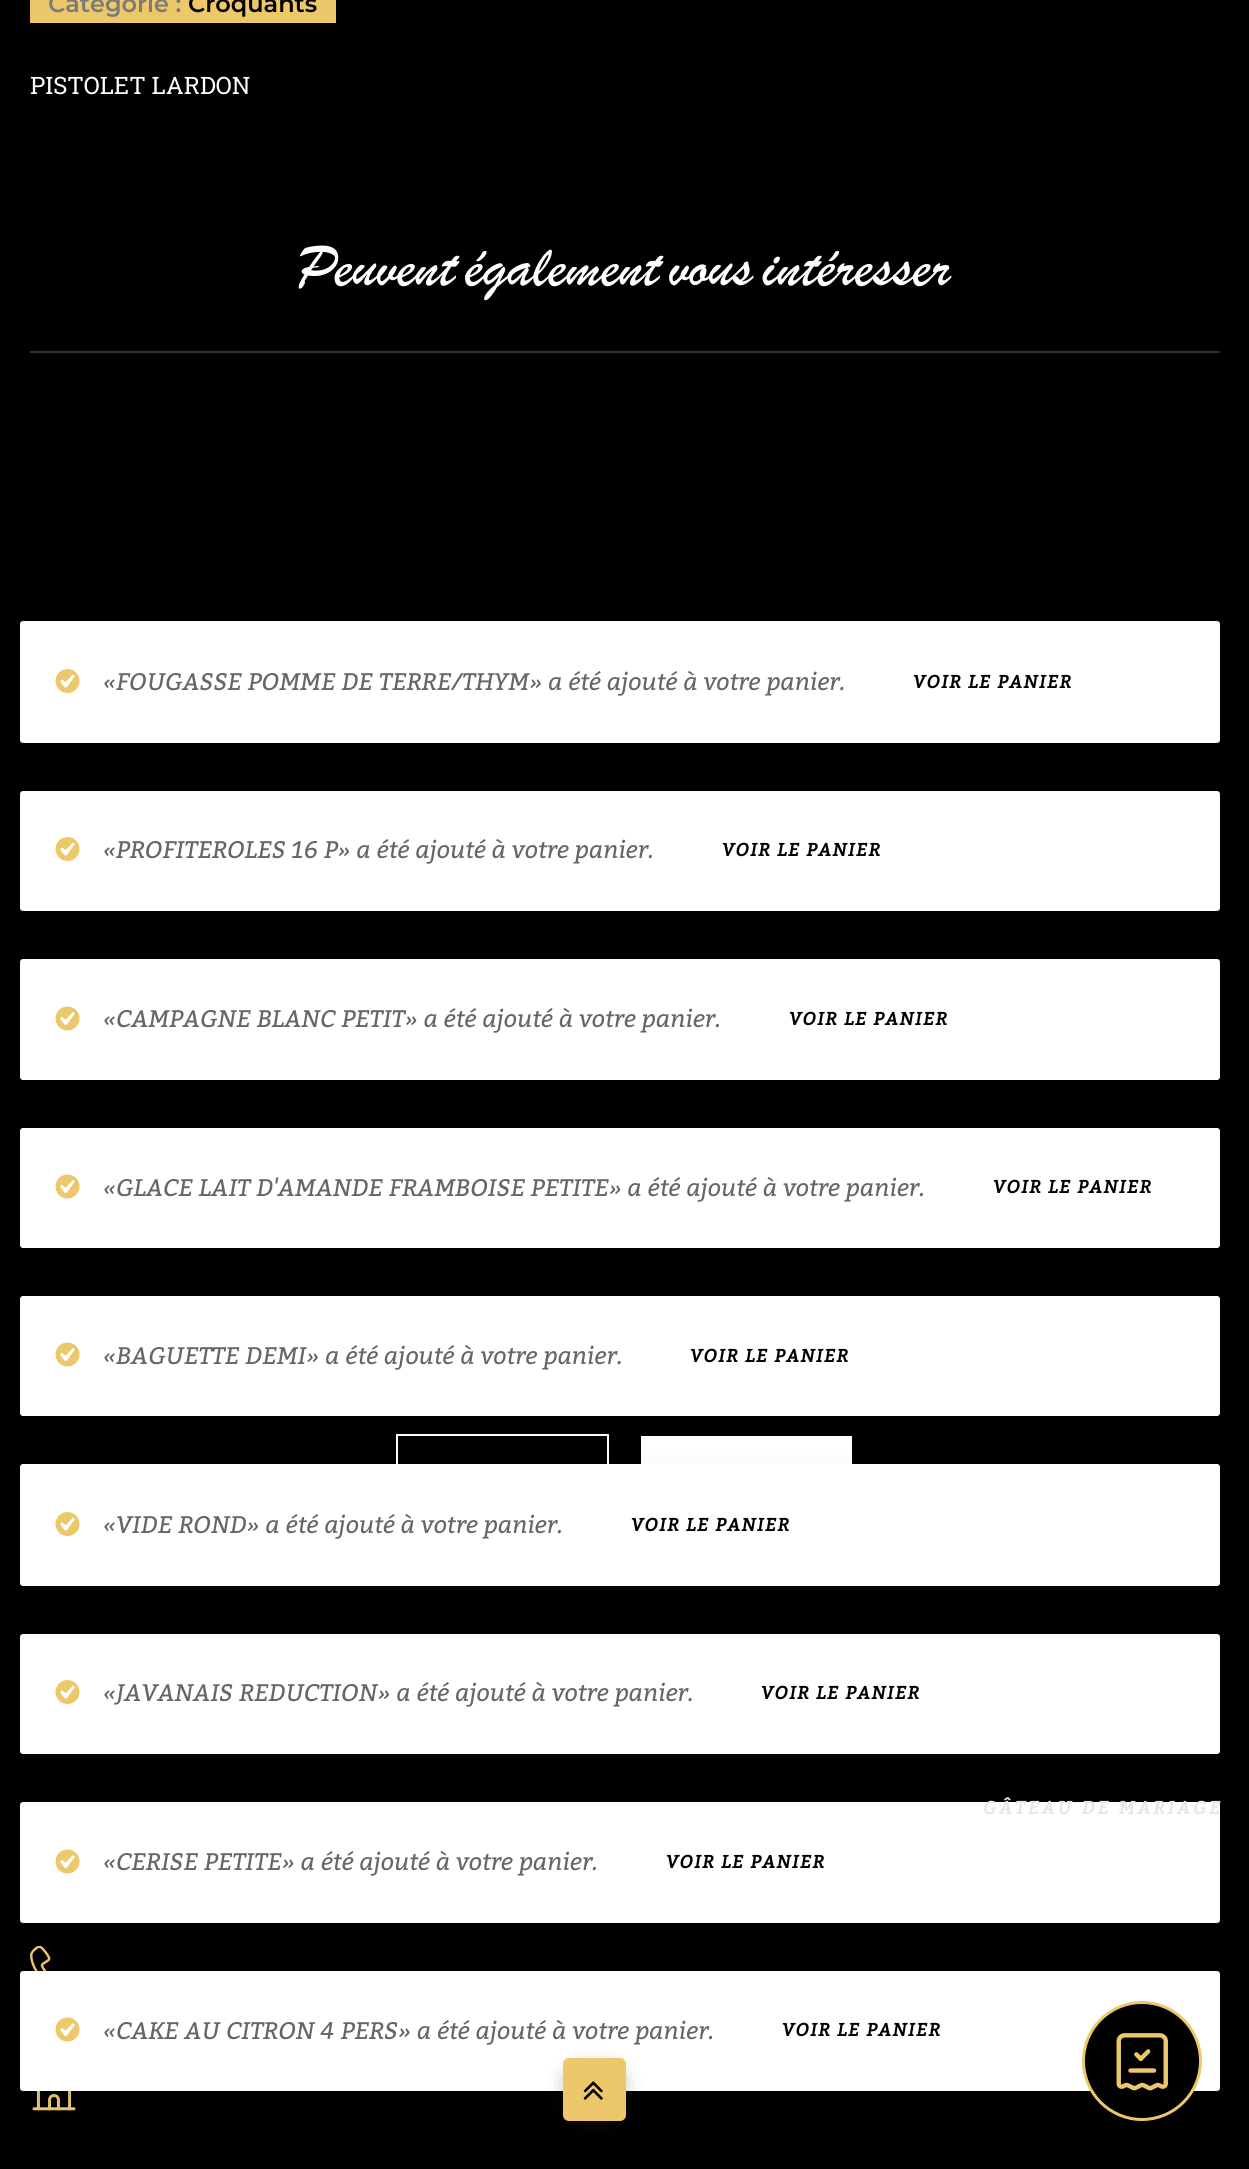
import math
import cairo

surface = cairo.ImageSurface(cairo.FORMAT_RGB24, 1249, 2169)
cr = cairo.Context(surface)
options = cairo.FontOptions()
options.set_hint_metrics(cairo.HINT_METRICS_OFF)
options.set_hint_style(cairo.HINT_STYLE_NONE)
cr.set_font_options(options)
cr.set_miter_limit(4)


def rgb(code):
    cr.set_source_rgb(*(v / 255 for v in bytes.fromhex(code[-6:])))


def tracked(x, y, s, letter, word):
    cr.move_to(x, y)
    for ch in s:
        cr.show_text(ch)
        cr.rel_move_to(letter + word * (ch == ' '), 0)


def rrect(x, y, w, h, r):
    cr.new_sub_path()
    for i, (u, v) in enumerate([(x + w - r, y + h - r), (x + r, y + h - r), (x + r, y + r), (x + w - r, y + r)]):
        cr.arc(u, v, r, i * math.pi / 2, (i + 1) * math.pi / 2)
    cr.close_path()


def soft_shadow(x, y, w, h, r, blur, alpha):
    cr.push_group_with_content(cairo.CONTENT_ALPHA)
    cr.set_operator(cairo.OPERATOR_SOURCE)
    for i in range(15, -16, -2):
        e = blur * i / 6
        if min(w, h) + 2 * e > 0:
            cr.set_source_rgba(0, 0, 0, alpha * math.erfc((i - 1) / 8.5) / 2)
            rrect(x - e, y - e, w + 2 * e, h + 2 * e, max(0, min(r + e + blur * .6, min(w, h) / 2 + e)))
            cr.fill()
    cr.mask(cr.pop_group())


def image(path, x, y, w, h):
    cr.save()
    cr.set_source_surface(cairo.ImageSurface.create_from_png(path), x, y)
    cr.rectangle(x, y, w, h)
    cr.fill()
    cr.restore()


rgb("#000000")
cr.paint()
rgb("#edc86a")
cr.rectangle(30, 0, 306, 23)
cr.fill()
rgb("#313131")
cr.rectangle(30, 351, 1190, 2)
cr.fill()
cr.rectangle(397, 1435, 211, 69)
rgb("#ffffff")
cr.stroke()
cr.rectangle(641, 1436, 211, 28)
cr.fill()
rrect(20, 621, 1200, 122, 3)
cr.fill()
image("img/1.png", 55, 669, 25, 24)
rrect(20, 791, 1200, 120, 3)
cr.fill()
image("img/1.png", 55, 837, 25, 24)
rrect(20, 959, 1200, 121, 3)
cr.fill()
image("img/2.png", 55, 1006, 25, 25)
rrect(20, 1128, 1200, 120, 3)
cr.fill()
image("img/2.png", 55, 1174, 25, 25)
rrect(20, 1296, 1200, 120, 3)
cr.fill()
image("img/2.png", 55, 1342, 25, 25)
rgb("#000000")
soft_shadow(20, 1472, 1200, 121, 3, 11, 0.09)
rgb("#ffffff")
rrect(20, 1464, 1200, 122, 3)
cr.fill()
image("img/1.png", 55, 1512, 25, 24)
rrect(20, 1634, 1200, 120, 3)
cr.fill()
image("img/1.png", 55, 1680, 25, 24)
rrect(20, 1802, 1200, 121, 3)
cr.fill()
image("img/2.png", 55, 1849, 25, 25)
image("img/4.png", 30, 1946, 21, 25)
image("img/5.png", 32, 2091, 44, 20)
rgb("#000000")
soft_shadow(20, 1979, 1200, 120, 3, 11, 0.09)
rgb("#ffffff")
rrect(20, 1971, 1200, 120, 3)
cr.fill()
image("img/2.png", 55, 2017, 25, 25)
rgb("#000000")
cr.arc(1142, 2061, 58.5, 0, 2 * math.pi)
cr.fill_preserve()
rgb("#edc86a")
cr.set_line_width(3)
cr.stroke()
image("img/3.png", 1116, 2033, 52, 58)
rgb("#1e1e1e")
soft_shadow(578, 2079, 33, 33, 0, 13, 1)
rgb("#edc86a")
rrect(563, 2058, 63, 63, 6)
cr.fill()
image("img/6.png", 583, 2081, 20, 19)
cr.select_font_face("Montserrat SemiBold")
cr.set_font_size(24)
rgb("#7a7a7a")
cr.move_to(48, 12)
cr.show_text("Catégorie :")
rgb("#000000")
cr.move_to(188, 12)
cr.show_text("Croquants")
cr.select_font_face("Roboto Slab")
rgb("#ffffff")
cr.move_to(30, 94)
cr.show_text("PISTOLET LARDON")
cr.select_font_face("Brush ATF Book")
cr.set_font_size(55.25)
cr.move_to(298, 285)
cr.show_text("Peuvent également vous intéresser")
cr.select_font_face("Bitter", cairo.FONT_SLANT_ITALIC)
cr.set_font_size(24)
rgb("#666666")
cr.move_to(103, 690)
cr.show_text("«FOUGASSE POMME DE TERRE/THYM» a été ajouté à votre panier.")
cr.select_font_face("Bitter", cairo.FONT_SLANT_ITALIC, cairo.FONT_WEIGHT_BOLD)
cr.set_font_size(18)
rgb("#000000")
tracked(913, 688, "VOIR LE PANIER", 1.5, 0)
cr.select_font_face("Bitter", cairo.FONT_SLANT_ITALIC)
cr.set_font_size(24)
rgb("#666666")
cr.move_to(103, 858)
cr.show_text("«PROFITEROLES 16 P» a été ajouté à votre panier.")
cr.select_font_face("Bitter", cairo.FONT_SLANT_ITALIC, cairo.FONT_WEIGHT_BOLD)
cr.set_font_size(18)
rgb("#000000")
tracked(722, 856, "VOIR LE PANIER", 1.5, 0)
cr.select_font_face("Bitter", cairo.FONT_SLANT_ITALIC)
cr.set_font_size(24)
rgb("#666666")
cr.move_to(103, 1027)
cr.show_text("«CAMPAGNE BLANC PETIT» a été ajouté à votre panier.")
cr.select_font_face("Bitter", cairo.FONT_SLANT_ITALIC, cairo.FONT_WEIGHT_BOLD)
cr.set_font_size(18)
rgb("#000000")
tracked(789, 1025, "VOIR LE PANIER", 1.5, 0)
cr.select_font_face("Bitter", cairo.FONT_SLANT_ITALIC)
cr.set_font_size(24)
rgb("#666666")
cr.move_to(103, 1196)
cr.show_text("«GLACE LAIT D'AMANDE FRAMBOISE PETITE» a été ajouté à votre panier.")
cr.select_font_face("Bitter", cairo.FONT_SLANT_ITALIC, cairo.FONT_WEIGHT_BOLD)
cr.set_font_size(18)
rgb("#000000")
tracked(993, 1193, "VOIR LE PANIER", 1.5, 0)
cr.select_font_face("Bitter", cairo.FONT_SLANT_ITALIC)
cr.set_font_size(24)
rgb("#666666")
cr.move_to(103, 1364)
cr.show_text("«BAGUETTE DEMI» a été ajouté à votre panier.")
cr.select_font_face("Bitter", cairo.FONT_SLANT_ITALIC, cairo.FONT_WEIGHT_BOLD)
cr.set_font_size(18)
rgb("#000000")
tracked(690, 1362, "VOIR LE PANIER", 1.5, 0)
cr.select_font_face("Bitter", cairo.FONT_SLANT_ITALIC)
cr.set_font_size(24)
rgb("#666666")
cr.move_to(103, 1533)
cr.show_text("«VIDE ROND» a été ajouté à votre panier.")
cr.select_font_face("Bitter", cairo.FONT_SLANT_ITALIC, cairo.FONT_WEIGHT_BOLD)
cr.set_font_size(18)
rgb("#000000")
tracked(631, 1531, "VOIR LE PANIER", 1.5, 0)
cr.select_font_face("Bitter", cairo.FONT_SLANT_ITALIC)
cr.set_font_size(24)
rgb("#666666")
cr.move_to(103, 1701)
cr.show_text("«JAVANAIS REDUCTION» a été ajouté à votre panier.")
cr.select_font_face("Bitter", cairo.FONT_SLANT_ITALIC, cairo.FONT_WEIGHT_BOLD)
cr.set_font_size(18)
rgb("#000000")
tracked(761, 1699, "VOIR LE PANIER", 1.5, 0)
cr.select_font_face("Bitter", cairo.FONT_SLANT_ITALIC)
cr.set_font_size(24)
rgb("#666666")
cr.move_to(103, 1870)
cr.show_text("«CERISE PETITE» a été ajouté à votre panier.")
cr.select_font_face("Bitter", cairo.FONT_SLANT_ITALIC, cairo.FONT_WEIGHT_BOLD)
cr.set_font_size(18)
rgb("#000000")
tracked(666, 1868, "VOIR LE PANIER", 1.5, 0)
cr.select_font_face("Bitter", cairo.FONT_SLANT_ITALIC)
cr.set_font_size(24)
rgb("#666666")
cr.move_to(103, 2039)
cr.show_text("«CAKE AU CITRON 4 PERS» a été ajouté à votre panier.")
cr.select_font_face("Bitter", cairo.FONT_SLANT_ITALIC, cairo.FONT_WEIGHT_BOLD)
cr.set_font_size(18)
rgb("#000000")
tracked(782, 2036, "VOIR LE PANIER", 1.5, 0)
rgb("#e6e6e6")
tracked(983, 1814, "GÂTEAU DE MARIAGE", 3, 0)
surface.write_to_png("page.png")
